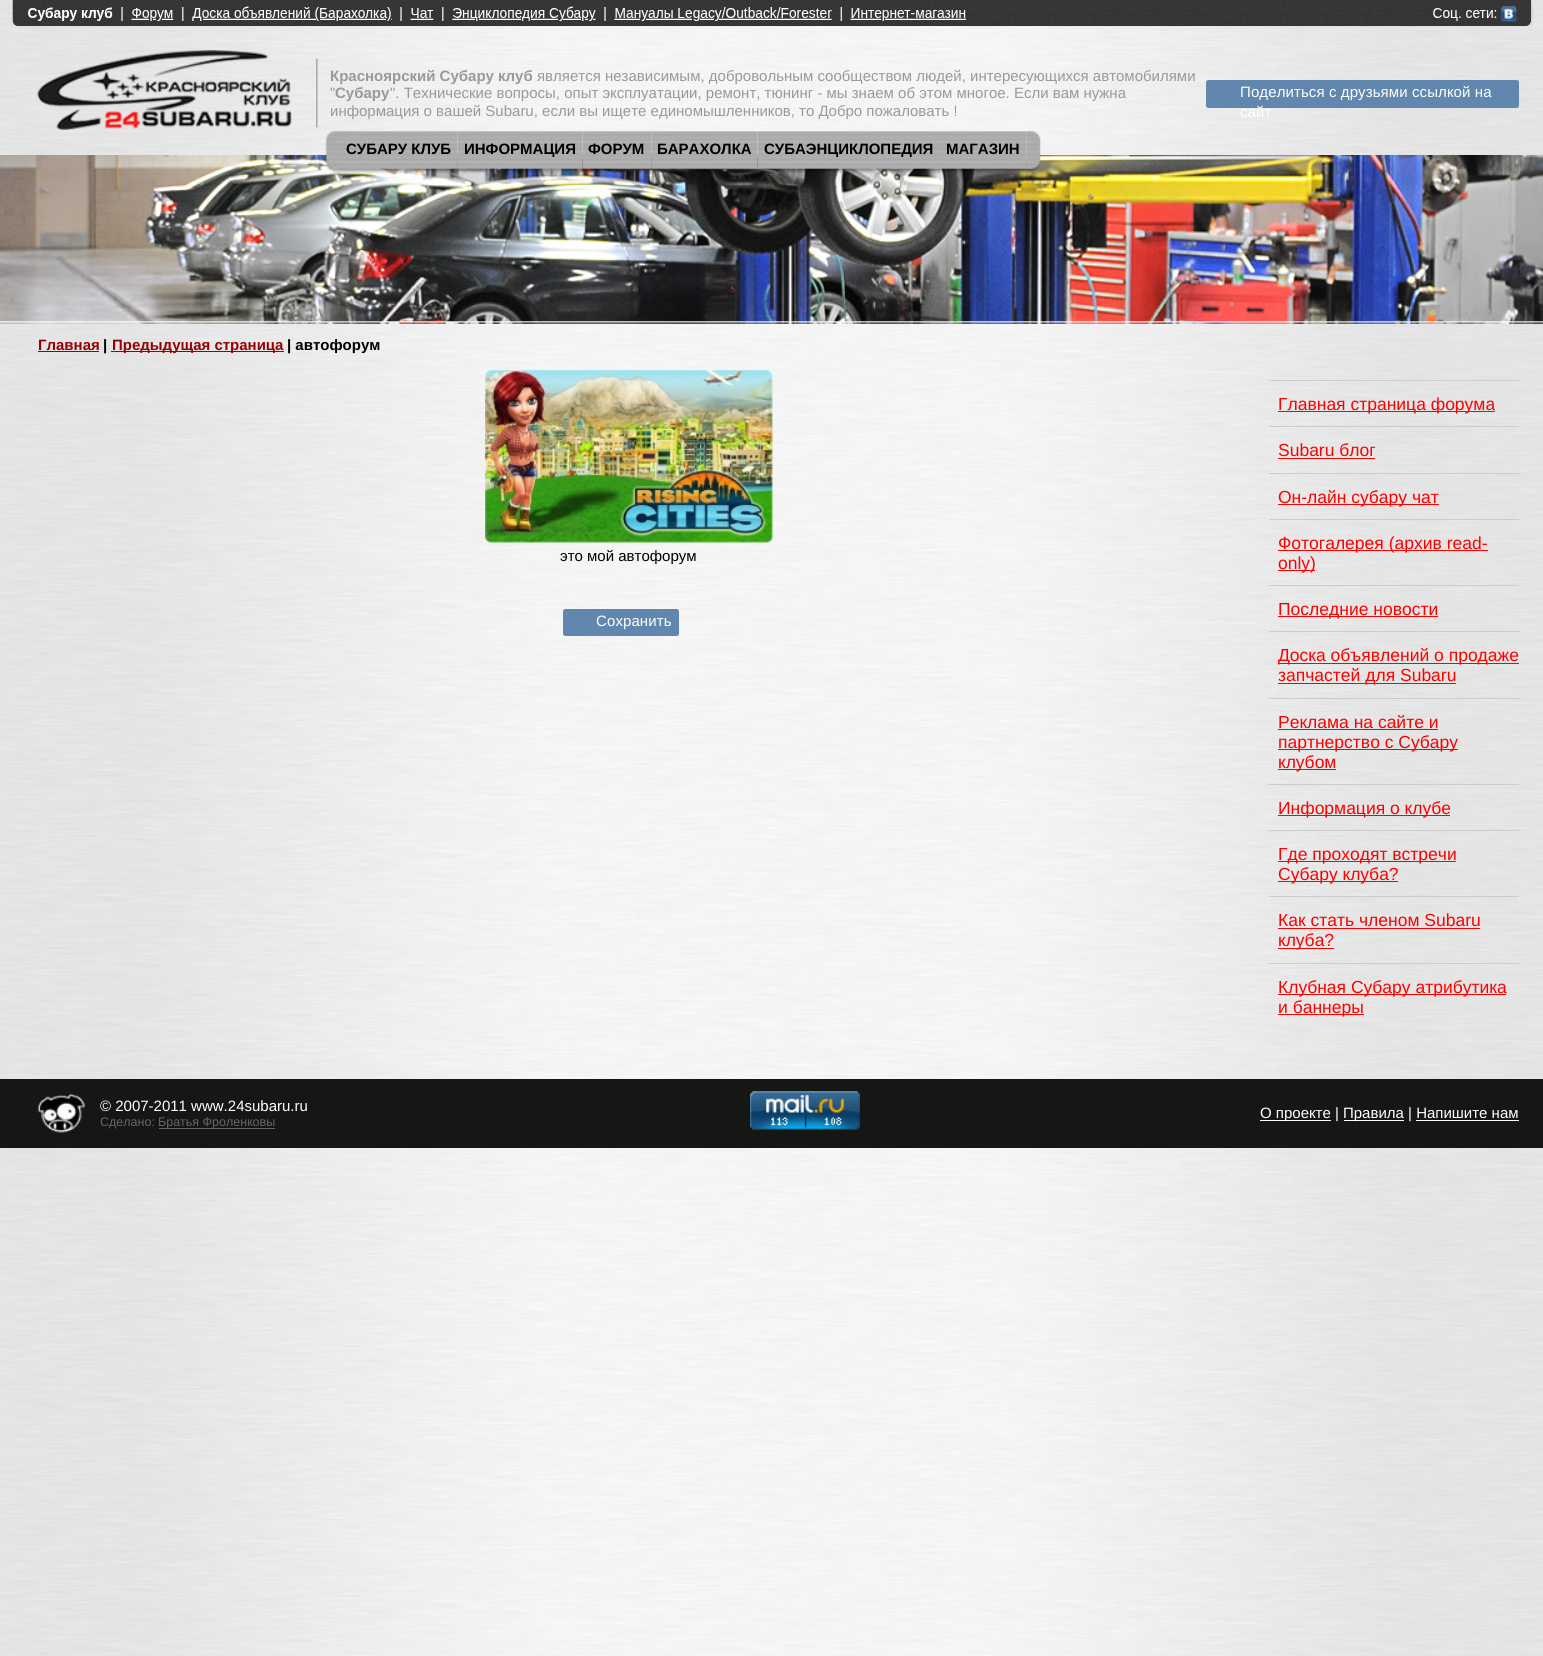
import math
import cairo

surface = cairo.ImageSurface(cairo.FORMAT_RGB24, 1543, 1656)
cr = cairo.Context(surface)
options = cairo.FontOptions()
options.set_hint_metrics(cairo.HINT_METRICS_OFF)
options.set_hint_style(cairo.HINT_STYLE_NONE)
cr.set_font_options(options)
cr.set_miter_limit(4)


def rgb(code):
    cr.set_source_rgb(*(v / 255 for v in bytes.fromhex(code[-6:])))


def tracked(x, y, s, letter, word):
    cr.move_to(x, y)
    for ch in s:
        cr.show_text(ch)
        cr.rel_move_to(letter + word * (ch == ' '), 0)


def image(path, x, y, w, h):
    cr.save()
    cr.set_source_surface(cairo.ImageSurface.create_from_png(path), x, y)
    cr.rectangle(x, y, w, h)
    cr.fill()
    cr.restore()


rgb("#ffffff")
cr.paint()
image("img/1.png", 0, 0, 1543, 1656)
image("img/2.png", 12, 0, 1522, 27)
image("img/3.png", 37, 50, 255, 80)
image("img/4.png", 316, 58, 2, 70)
rgb("#6287ae")
cr.new_path()
cr.move_to(1208.5, 80)
cr.line_to(1240, 80)
cr.line_to(1240, 108)
cr.line_to(1208.5, 108)
cr.curve_to(1207, 108, 1206, 107, 1206, 105.5)
cr.line_to(1206, 82.5)
cr.curve_to(1206, 81, 1207, 80, 1208.5, 80)
cr.close_path()
cr.fill()
cr.new_path()
cr.move_to(1240, 80)
cr.line_to(1516.5, 80)
cr.curve_to(1518, 80, 1519, 81, 1519, 82.5)
cr.line_to(1519, 105.5)
cr.curve_to(1519, 107, 1518, 108, 1516.5, 108)
cr.line_to(1240, 108)
cr.close_path()
cr.fill()
image("img/13.png", 0, 155, 1543, 169)
image("img/5.png", 325, 131, 15, 43)
image("img/6.png", 340, 131, 118, 43)
image("img/7.png", 457, 131, 126, 43)
image("img/8.png", 582, 131, 70, 43)
image("img/9.png", 651, 131, 107, 43)
image("img/10.png", 757, 131, 183, 43)
image("img/11.png", 940, 131, 87, 43)
image("img/12.png", 1026, 131, 15, 43)
rgb("#990000")
cr.rectangle(38, 351, 61, 1)
cr.fill()
cr.rectangle(111, 351, 173, 1)
cr.fill()
image("img/14.png", 485, 370, 288, 173)
rgb("#6287ae")
cr.new_path()
cr.move_to(565.5, 609)
cr.line_to(596, 609)
cr.line_to(596, 636)
cr.line_to(565.5, 636)
cr.curve_to(564, 636, 563, 635, 563, 633.5)
cr.line_to(563, 611.5)
cr.curve_to(563, 610, 564, 609, 565.5, 609)
cr.close_path()
cr.fill()
cr.new_path()
cr.move_to(596, 609)
cr.line_to(676.5, 609)
cr.curve_to(678, 609, 679, 610, 679, 611.5)
cr.line_to(679, 633.5)
cr.curve_to(679, 635, 678, 636, 676.5, 636)
cr.line_to(596, 636)
cr.close_path()
cr.fill()
for x, y, w, h, color in [
    (1269, 380, 250, 1, "#cccccc"),
    (1278, 411, 217, 1, "#ff0000"),
    (1269, 426, 250, 1, "#cccccc"),
    (1278, 458, 97, 1, "#ff0000"),
    (1269, 473, 250, 1, "#cccccc"),
    (1278, 504, 161, 1, "#ff0000"),
    (1269, 519, 250, 1, "#cccccc"),
    (1278, 550, 210, 1, "#ff0000"),
    (1278, 570, 37, 1, "#ff0000"),
    (1269, 585, 250, 1, "#cccccc"),
    (1278, 616, 160, 1, "#ff0000"),
    (1269, 631, 250, 1, "#cccccc"),
    (1278, 663, 241, 1, "#ff0000"),
    (1278, 683, 178, 1, "#ff0000"),
    (1269, 698, 250, 1, "#cccccc"),
    (1278, 729, 160, 1, "#ff0000"),
    (1278, 749, 180, 1, "#ff0000"),
    (1278, 769, 58, 1, "#ff0000"),
    (1269, 784, 250, 1, "#cccccc"),
    (1278, 815, 172, 1, "#ff0000"),
    (1269, 830, 250, 1, "#cccccc"),
    (1278, 861, 178, 1, "#ff0000"),
    (1278, 881, 120, 1, "#ff0000"),
    (1269, 896, 250, 1, "#cccccc"),
    (1278, 928, 202, 1, "#ff0000"),
    (1278, 948, 56, 1, "#ff0000"),
    (1269, 963, 250, 1, "#cccccc"),
    (1278, 994, 228, 1, "#ff0000"),
    (1278, 1014, 86, 1, "#ff0000"),
    (0, 1079, 1543, 69, "#151715"),
]:
    rgb(color)
    cr.rectangle(x, y, w, h)
    cr.fill()
image("img/15.png", 37, 1093, 48, 40)
rgb("#666666")
cr.rectangle(159, 1128, 116, 1)
cr.fill()
image("img/16.png", 750, 1091, 110, 39)
for x, y, w, h, color in [
    (1260, 1120, 71, 1, "#ffffff"),
    (1344, 1120, 60, 1, "#ffffff"),
    (1416, 1120, 103, 1, "#ffffff"),
]:
    rgb(color)
    cr.rectangle(x, y, w, h)
    cr.fill()
cr.select_font_face("Liberation Sans", cairo.FONT_SLANT_NORMAL, cairo.FONT_WEIGHT_BOLD)
cr.set_font_size(15)
rgb("#999999")
cr.move_to(330, 81)
cr.show_text("Красноярский Субару клуб")
cr.select_font_face("Liberation Sans")
cr.move_to(537, 81)
cr.show_text("является независимым, добровольным сообществом людей, интересующихся автомобилями")
cr.move_to(330, 98)
cr.show_text("\"")
cr.select_font_face("Liberation Sans", cairo.FONT_SLANT_NORMAL, cairo.FONT_WEIGHT_BOLD)
cr.move_to(335, 98)
cr.show_text("Субару")
cr.select_font_face("Liberation Sans")
cr.move_to(390, 98)
cr.show_text("\". Технические вопросы, опыт эксплуатации, ремонт, тюнинг - мы знаем об этом многое. Если вам нужна")
cr.move_to(330, 116)
cr.show_text("информация о вашей Subaru, если вы ищете единомышленников, то Добро пожаловать !")
rgb("#ffffff")
tracked(1240, 97, "Поделиться с друзьями ссылкой на", 0.1, 0)
tracked(1240, 117, "сайт", 0.1, 0)
cr.select_font_face("Liberation Sans", cairo.FONT_SLANT_NORMAL, cairo.FONT_WEIGHT_BOLD)
rgb("#000000")
for x, y, s in [
    (346, 154, "СУБАРУ КЛУБ"),
    (464, 154, "ИНФОРМАЦИЯ"),
    (588, 154, "ФОРУМ"),
    (657, 154, "БАРАХОЛКА"),
    (764, 154, "СУБАЭНЦИКЛОПЕДИЯ"),
    (946, 154, "МАГАЗИН"),
]:
    cr.move_to(x, y)
    cr.show_text(s)
rgb("#990000")
cr.move_to(38, 350)
cr.show_text("Главная")
rgb("#000000")
cr.move_to(103, 350)
cr.show_text("|")
rgb("#990000")
cr.move_to(112, 350)
cr.show_text("Предыдущая страница")
rgb("#000000")
cr.move_to(287, 350)
cr.show_text("| автофорум")
cr.select_font_face("Liberation Sans")
cr.move_to(560, 561)
cr.show_text("это мой автофорум")
rgb("#ffffff")
tracked(596, 626, "Сохранить", 0.1, 0)
cr.set_font_size(17.5)
rgb("#ff0000")
for x, y, s in [
    (1278, 410, "Главная страница форума"),
    (1278, 456, "Subaru блог"),
    (1278, 503, "Он-лайн субару чат"),
    (1278, 549, "Фотогалерея (архив read-"),
    (1278, 569, "only)"),
    (1278, 615, "Последние новости"),
    (1278, 661, "Доска объявлений о продаже"),
    (1278, 681, "запчастей для Subaru"),
    (1278, 728, "Реклама на сайте и"),
    (1278, 748, "партнерство с Субару"),
    (1278, 768, "клубом"),
    (1278, 814, "Информация о клубе"),
    (1278, 860, "Где проходят встречи"),
    (1278, 880, "Субару клуба?"),
    (1278, 926, "Как стать членом Subaru"),
    (1278, 946, "клуба?"),
    (1278, 993, "Клубная Субару атрибутика"),
    (1278, 1013, "и баннеры"),
]:
    cr.move_to(x, y)
    cr.show_text(s)
cr.set_font_size(15)
rgb("#ffffff")
cr.move_to(100, 1111)
cr.show_text("© 2007-2011 www.24subaru.ru")
cr.set_font_size(12.5)
rgb("#666666")
cr.move_to(100, 1126)
cr.show_text("Сделано:")
cr.move_to(158, 1126)
cr.show_text("Братья Фроленковы")
cr.set_font_size(15)
rgb("#ffffff")
cr.move_to(1260, 1118)
cr.show_text("О проекте |")
cr.move_to(1343, 1118)
cr.show_text("Правила | Напишите нам")
surface.write_to_png("page.png")
